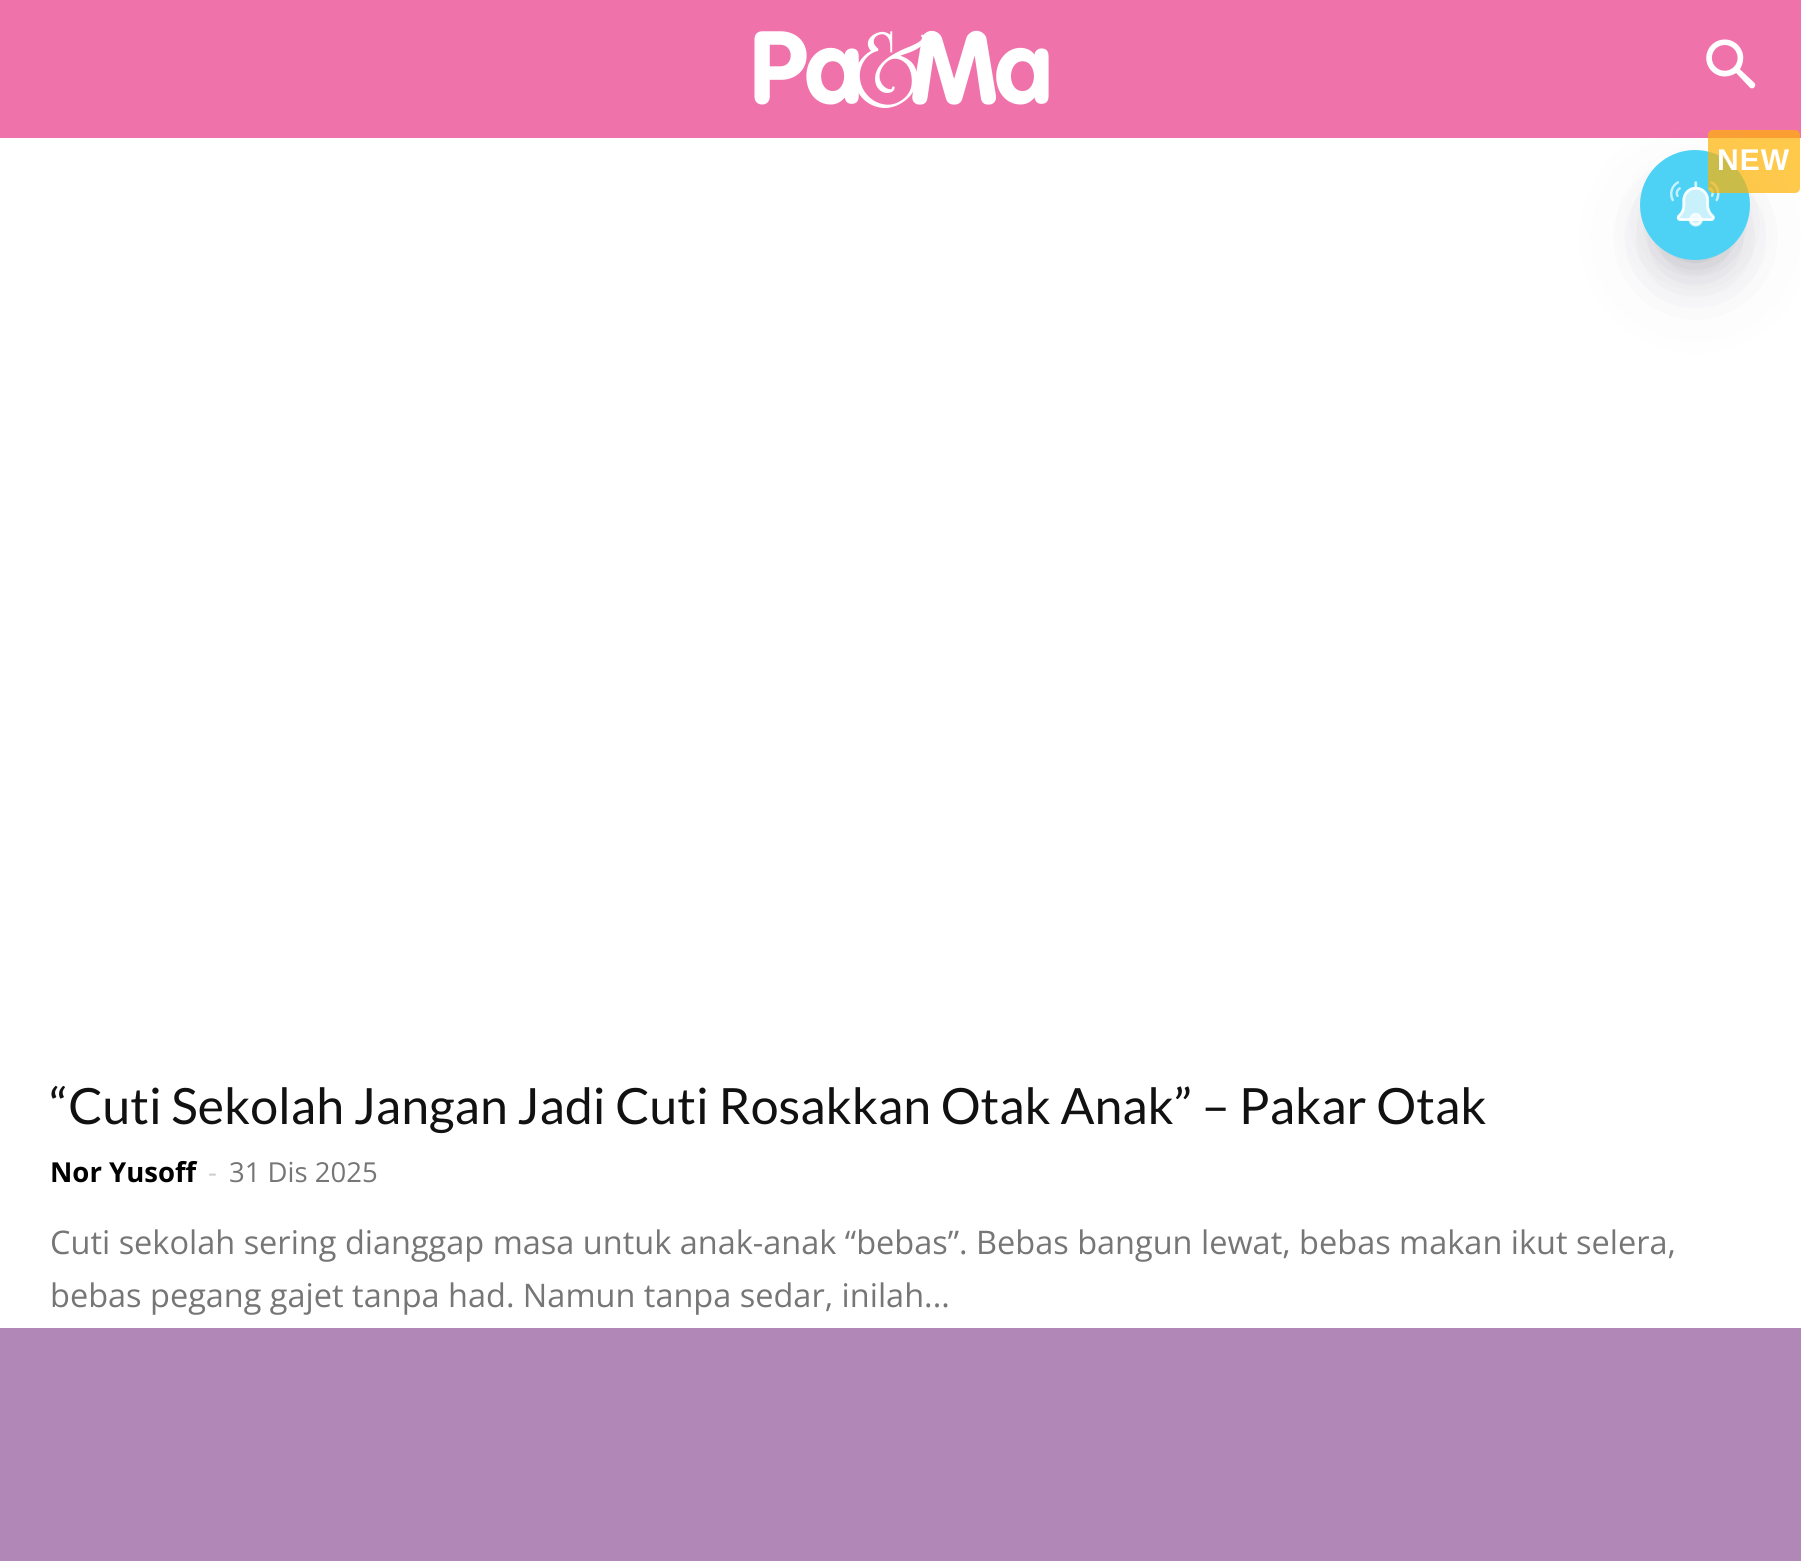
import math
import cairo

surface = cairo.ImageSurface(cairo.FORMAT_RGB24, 1801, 1561)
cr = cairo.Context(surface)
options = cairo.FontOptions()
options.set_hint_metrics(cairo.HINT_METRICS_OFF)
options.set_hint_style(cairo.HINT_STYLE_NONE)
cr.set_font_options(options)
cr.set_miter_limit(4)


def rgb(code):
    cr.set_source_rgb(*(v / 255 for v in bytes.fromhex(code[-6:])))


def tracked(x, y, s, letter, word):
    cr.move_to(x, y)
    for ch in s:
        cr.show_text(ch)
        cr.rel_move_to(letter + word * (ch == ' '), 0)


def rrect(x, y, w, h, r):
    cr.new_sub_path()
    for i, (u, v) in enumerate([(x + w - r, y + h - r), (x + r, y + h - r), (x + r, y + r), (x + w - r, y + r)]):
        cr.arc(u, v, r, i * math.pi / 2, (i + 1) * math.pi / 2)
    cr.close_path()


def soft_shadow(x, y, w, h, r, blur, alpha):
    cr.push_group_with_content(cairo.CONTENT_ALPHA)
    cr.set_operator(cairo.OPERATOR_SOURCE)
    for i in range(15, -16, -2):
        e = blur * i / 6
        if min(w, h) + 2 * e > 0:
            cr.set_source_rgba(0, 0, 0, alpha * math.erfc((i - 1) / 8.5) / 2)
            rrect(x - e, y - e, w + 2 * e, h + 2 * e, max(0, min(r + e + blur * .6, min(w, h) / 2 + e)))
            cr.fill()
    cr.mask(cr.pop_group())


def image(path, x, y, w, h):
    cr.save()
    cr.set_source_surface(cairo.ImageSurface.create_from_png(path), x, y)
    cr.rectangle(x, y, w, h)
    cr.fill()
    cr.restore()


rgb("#ffffff")
cr.paint()
rgb("#f072ab")
cr.rectangle(0, 0, 1801, 138)
cr.fill()
rgb("#4d4d4d")
soft_shadow(1660, 190, 70, 70, 35, 20, 0.3)
rgb("#32325d")
soft_shadow(1653, 195, 85, 85, 42.5, 34, 0.17)
rgb("#4dd2f6")
cr.arc(1695, 205, 55, 0, 2 * math.pi)
cr.fill()
image("img/1.png", 1670, 181, 50, 46)
cr.set_source_rgba(1, 0.702, 0, 0.7)
rrect(1708, 130, 92, 63, 5)
cr.fill()
image("img/2.png", 754, 30, 295, 78)
image("img/3.png", 1706, 39, 50, 50)
rgb("#b187b7")
cr.rectangle(0, 1328, 1801, 233)
cr.fill()
cr.select_font_face("Liberation Sans", cairo.FONT_SLANT_NORMAL, cairo.FONT_WEIGHT_BOLD)
cr.set_font_size(30)
rgb("#ffffff")
tracked(1717, 170, "NEW", 1, 0)
cr.select_font_face("Lato")
cr.set_font_size(50)
rgb("#111111")
cr.move_to(50, 1124)
cr.show_text("“Cuti Sekolah Jangan Jadi Cuti Rosakkan Otak Anak” – Pakar Otak")
cr.select_font_face("Open Sans", cairo.FONT_SLANT_NORMAL, cairo.FONT_WEIGHT_BOLD)
cr.set_font_size(27.5)
rgb("#000000")
cr.move_to(50, 1182)
cr.show_text("Nor Yusoff")
cr.select_font_face("Open Sans")
rgb("#cccccc")
cr.move_to(208, 1182)
cr.show_text("-")
rgb("#767676")
cr.move_to(229, 1182)
cr.show_text("31 Dis 2025")
cr.set_font_size(32.5)
cr.move_to(50, 1254)
cr.show_text("Cuti sekolah sering dianggap masa untuk anak-anak “bebas”. Bebas bangun lewat, bebas makan ikut selera,")
cr.move_to(50, 1307)
cr.show_text("bebas pegang gajet tanpa had. Namun tanpa sedar, inilah...")
surface.write_to_png("page.png")
